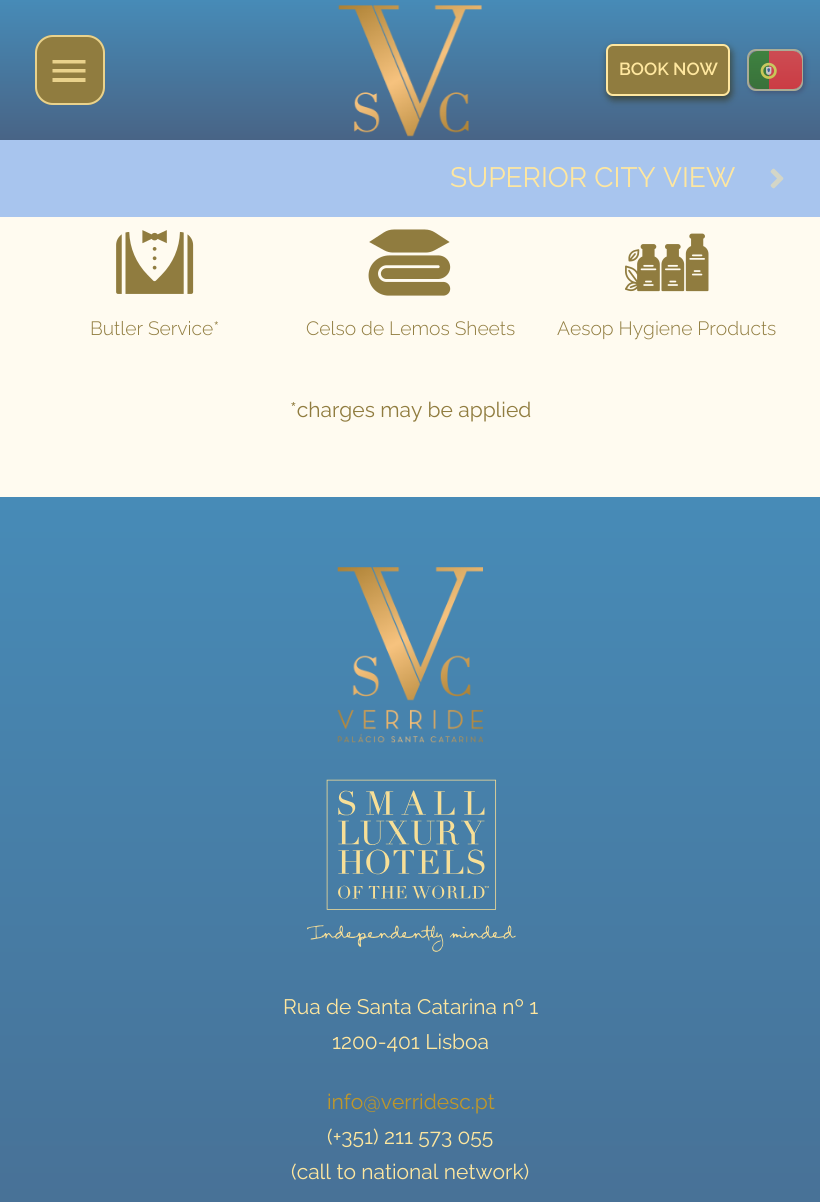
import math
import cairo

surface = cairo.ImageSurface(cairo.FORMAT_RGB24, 820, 1202)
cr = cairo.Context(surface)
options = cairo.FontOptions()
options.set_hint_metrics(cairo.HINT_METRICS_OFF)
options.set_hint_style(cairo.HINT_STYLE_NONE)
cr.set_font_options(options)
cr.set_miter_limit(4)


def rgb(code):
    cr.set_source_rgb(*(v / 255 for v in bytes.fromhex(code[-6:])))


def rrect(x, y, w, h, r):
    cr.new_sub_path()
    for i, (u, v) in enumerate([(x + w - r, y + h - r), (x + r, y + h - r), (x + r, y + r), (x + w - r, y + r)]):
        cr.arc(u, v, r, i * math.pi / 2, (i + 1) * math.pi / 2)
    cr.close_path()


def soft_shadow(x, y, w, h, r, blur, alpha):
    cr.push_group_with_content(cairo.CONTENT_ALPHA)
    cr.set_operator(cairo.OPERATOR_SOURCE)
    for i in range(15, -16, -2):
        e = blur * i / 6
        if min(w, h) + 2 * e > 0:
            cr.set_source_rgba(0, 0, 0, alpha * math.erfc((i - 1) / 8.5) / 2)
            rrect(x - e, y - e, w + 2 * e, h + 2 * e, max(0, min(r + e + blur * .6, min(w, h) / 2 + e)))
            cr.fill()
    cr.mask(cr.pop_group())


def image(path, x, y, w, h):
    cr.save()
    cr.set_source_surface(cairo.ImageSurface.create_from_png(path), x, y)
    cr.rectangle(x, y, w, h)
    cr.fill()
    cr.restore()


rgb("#fffbf0")
cr.paint()
gradient = cairo.LinearGradient(410, 0, 410, 140)
gradient.add_color_stop_rgba(0, 0.278, 0.545, 0.718, 1)
gradient.add_color_stop_rgba(1, 0.282, 0.392, 0.525, 1)
cr.set_source(gradient)
cr.rectangle(0, 0, 820, 140)
cr.fill()
image("img/1.png", 338, 5, 144, 132)
rgb("#907c3f")
rrect(35, 35, 70, 70, 18)
cr.fill()
rrect(36, 36, 68, 68, 17)
cr.set_source_rgba(1, 0.906, 0.624, 0.8)
cr.stroke()
rgb("#e9d28c")
cr.new_path()
cr.move_to(52.5, 82)
cr.line_to(85.5, 82)
cr.line_to(85.5, 78)
cr.line_to(52.5, 78)
cr.close_path()
cr.move_to(52.5, 72.5)
cr.line_to(85.5, 72.5)
cr.line_to(85.5, 69)
cr.line_to(52.5, 69)
cr.close_path()
cr.move_to(52.5, 60)
cr.line_to(52.5, 63.5)
cr.line_to(85.5, 63.5)
cr.line_to(85.5, 60)
cr.close_path()
cr.fill()
rgb("#322903")
soft_shadow(607, 47, 125, 53, 7, 3.5, 0.59)
rgb("#907c3f")
rrect(607, 45, 122, 50, 6)
cr.fill_preserve()
rgb("#ffe79f")
cr.stroke()
cr.save()
cr.set_fill_rule(cairo.FILL_RULE_EVEN_ODD)
cr.new_path()
cr.move_to(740, 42)
cr.line_to(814, 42)
cr.line_to(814, 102)
cr.line_to(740, 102)
cr.close_path()
cr.move_to(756, 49)
cr.line_to(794, 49)
cr.curve_to(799, 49, 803, 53, 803, 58)
cr.line_to(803, 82)
cr.curve_to(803, 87, 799, 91, 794, 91)
cr.line_to(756, 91)
cr.curve_to(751, 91, 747, 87, 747, 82)
cr.line_to(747, 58)
cr.curve_to(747, 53, 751, 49, 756, 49)
cr.close_path()
cr.clip()
rgb("#3f3d5b")
soft_shadow(749, 51, 56, 42, 9, 2.5, 0.5)
cr.restore()
rrect(748, 50, 54, 40, 8)
cr.set_source_rgba(0.8, 0.745, 0.573, 0.74)
cr.stroke()
image("img/2.png", 749, 51, 53, 38)
rgb("#a8c5ee")
cr.rectangle(0, 140, 820, 77)
cr.fill()
image("img/3.png", 770, 168, 14, 21)
image("img/4.png", 116, 230, 78, 64)
image("img/5.png", 368, 229, 83, 67)
image("img/6.png", 625, 233, 84, 59)
gradient = cairo.LinearGradient(410, 497, 410, 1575)
gradient.add_color_stop_rgba(0, 0.278, 0.545, 0.718, 1)
gradient.add_color_stop_rgba(1, 0.282, 0.392, 0.525, 1)
cr.set_source(gradient)
cr.rectangle(0, 497, 820, 705)
cr.fill()
image("img/7.png", 337, 567, 146, 176)
image("img/8.png", 307, 779, 209, 173)
cr.select_font_face("Raleway SemiBold")
cr.set_font_size(17.5)
rgb("#ffe79f")
cr.move_to(619, 75)
cr.show_text("BOOK NOW")
cr.select_font_face("Raleway")
cr.set_font_size(28)
cr.move_to(450, 187)
cr.show_text("SUPERIOR CITY VIEW")
cr.select_font_face("Raleway Light")
cr.set_font_size(19.25)
rgb("#907c3f")
for x, y, s in [
    (90, 335, "Butler Service*"),
    (306, 335, "Celso de Lemos Sheets"),
    (557, 335, "Aesop Hygiene Products"),
]:
    cr.move_to(x, y)
    cr.show_text(s)
cr.select_font_face("Raleway")
cr.set_font_size(21)
cr.move_to(290, 417)
cr.show_text("*charges may be applied")
rgb("#ffe79f")
cr.move_to(283, 1014)
cr.show_text("Rua de Santa Catarina nº 1")
cr.move_to(332, 1049)
cr.show_text("1200-401 Lisboa")
rgb("#bf972a")
cr.move_to(327, 1109)
cr.show_text("info@verridesc.pt")
rgb("#ffe79f")
cr.move_to(327, 1144)
cr.show_text("(+351) 211 573 055")
cr.move_to(291, 1179)
cr.show_text("(call to national network)")
surface.write_to_png("page.png")
